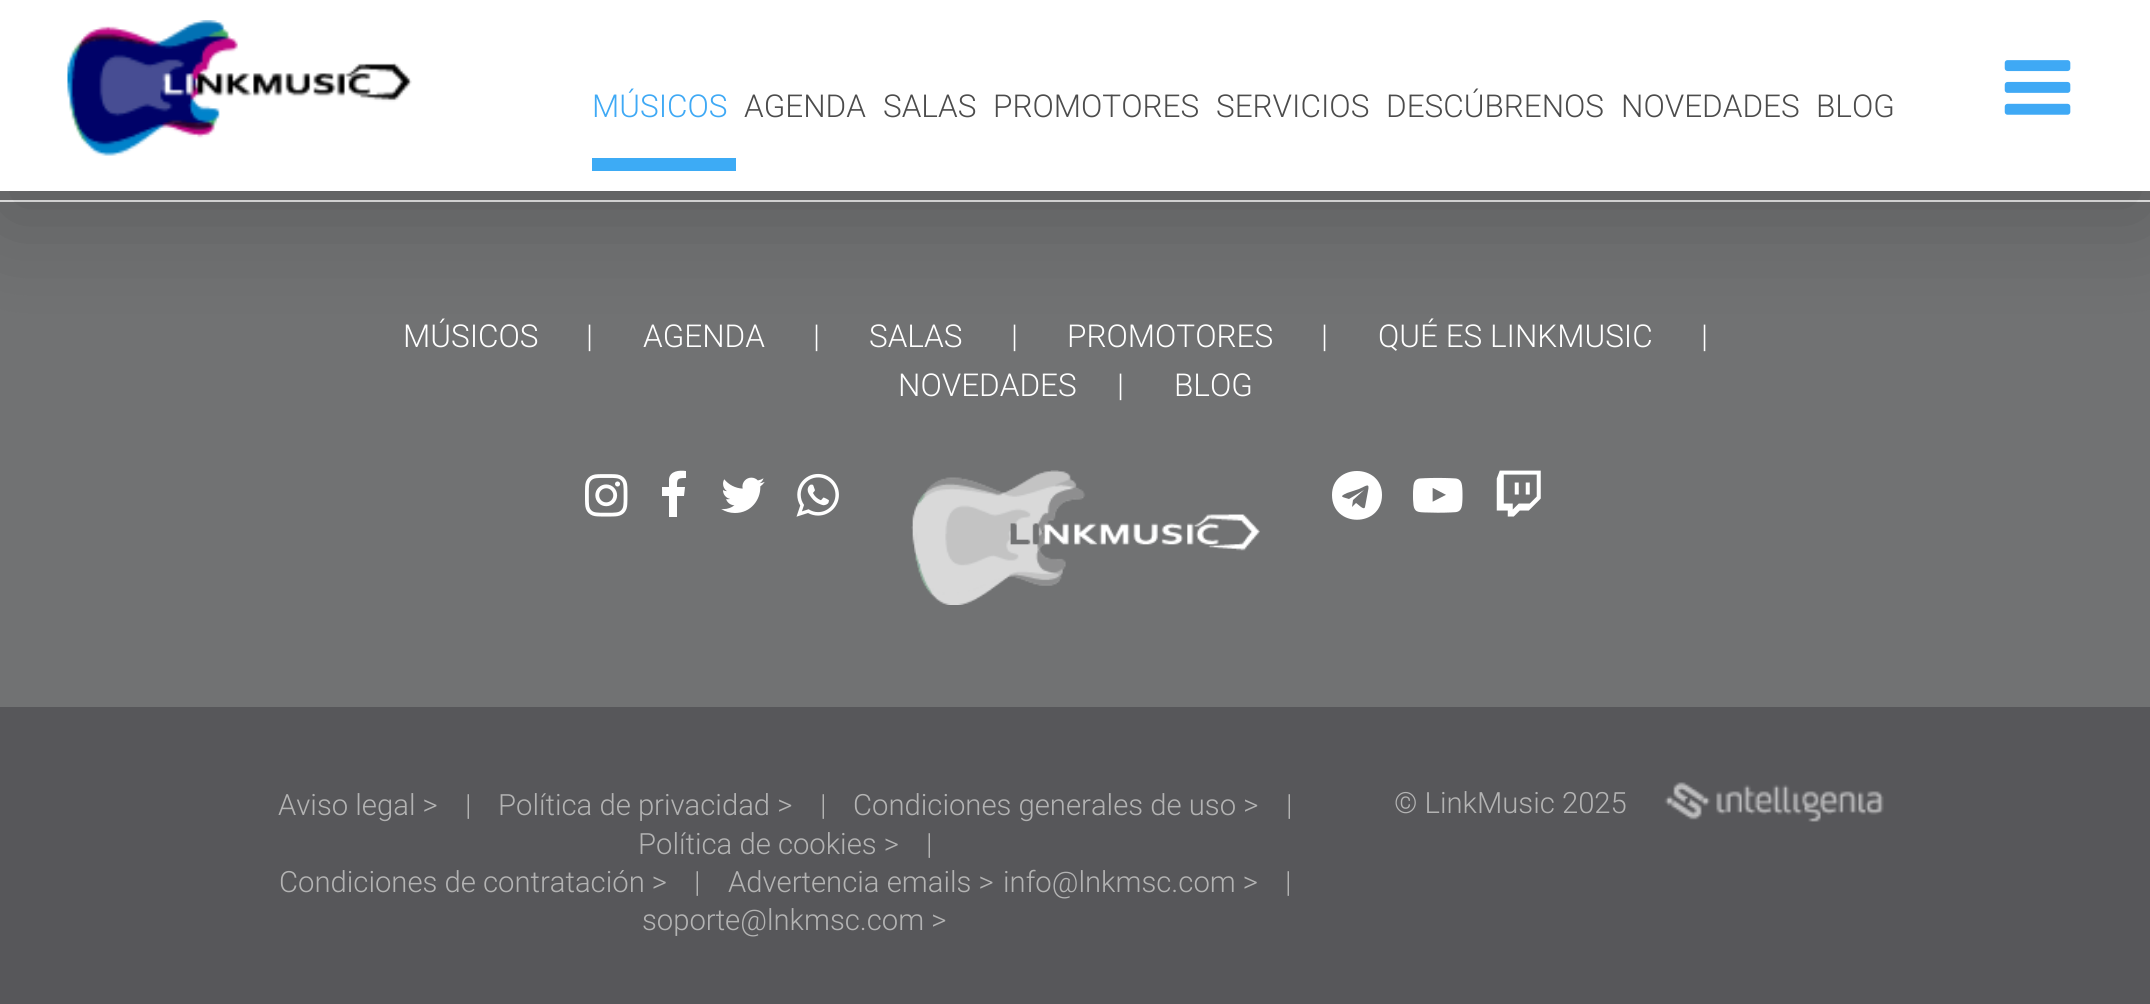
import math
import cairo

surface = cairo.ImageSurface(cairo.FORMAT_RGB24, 2150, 1004)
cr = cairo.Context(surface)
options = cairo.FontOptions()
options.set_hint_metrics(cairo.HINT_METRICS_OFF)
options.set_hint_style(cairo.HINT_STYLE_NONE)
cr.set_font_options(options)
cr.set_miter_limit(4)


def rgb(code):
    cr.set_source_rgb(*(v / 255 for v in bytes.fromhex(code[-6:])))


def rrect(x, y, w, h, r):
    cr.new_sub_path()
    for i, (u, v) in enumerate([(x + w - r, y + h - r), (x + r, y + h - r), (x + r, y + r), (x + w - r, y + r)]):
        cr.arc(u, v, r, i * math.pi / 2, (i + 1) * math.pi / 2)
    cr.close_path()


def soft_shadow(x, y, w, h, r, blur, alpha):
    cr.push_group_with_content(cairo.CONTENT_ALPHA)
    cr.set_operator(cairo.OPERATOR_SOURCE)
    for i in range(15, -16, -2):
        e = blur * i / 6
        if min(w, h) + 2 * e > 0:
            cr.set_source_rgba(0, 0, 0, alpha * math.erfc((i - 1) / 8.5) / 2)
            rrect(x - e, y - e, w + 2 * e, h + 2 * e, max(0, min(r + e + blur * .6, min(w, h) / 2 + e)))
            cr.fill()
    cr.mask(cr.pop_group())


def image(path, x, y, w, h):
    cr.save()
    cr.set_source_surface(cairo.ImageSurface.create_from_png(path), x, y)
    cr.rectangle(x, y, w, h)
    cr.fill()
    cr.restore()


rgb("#717273")
cr.paint()
rgb("#eeeeee")
cr.rectangle(0, 200, 2150, 2)
cr.fill()
rgb("#000000")
soft_shadow(0, 27, 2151, 191, 0, 52, 0.2)
rgb("#ffffff")
cr.rectangle(0, 0, 2150, 191)
cr.fill()
image("img/1.png", 67, 20, 345, 136)
rgb("#3dabf5")
cr.rectangle(592, 158, 144, 13)
cr.fill()
image("img/2.png", 2004, 60, 67, 55)
image("img/3.png", 585, 474, 43, 43)
rgb("#ffffff")
cr.new_path()
cr.move_to(686, 471)
cr.curve_to(679, 470, 670, 471, 669, 479)
cr.line_to(669, 487)
cr.line_to(662, 487)
cr.line_to(662, 496)
cr.line_to(669, 496)
cr.line_to(669, 517)
cr.line_to(677, 517)
cr.line_to(677, 496)
cr.line_to(684, 496)
cr.line_to(685, 487)
cr.line_to(677, 487)
cr.curve_to(677, 479, 677, 478, 686, 478)
cr.close_path()
cr.fill()
image("img/4.png", 721, 477, 44, 36)
image("img/5.png", 796, 473, 43, 44)
image("img/6.png", 911, 470, 349, 135)
cr.new_path()
cr.move_to(1365, 507)
cr.curve_to(1364, 511, 1358, 504, 1356, 503)
cr.line_to(1352, 507)
cr.line_to(1353, 500)
cr.line_to(1364, 490)
cr.line_to(1349, 499)
cr.curve_to(1343, 497, 1338, 497, 1347, 493)
cr.line_to(1359, 489)
cr.curve_to(1366, 486, 1370, 482, 1368, 491)
cr.close_path()
cr.move_to(1382, 495)
cr.curve_to(1382, 463, 1332, 463, 1332, 495)
cr.curve_to(1332, 528, 1382, 528, 1382, 495)
cr.close_path()
cr.fill()
image("img/7.png", 1413, 477, 50, 36)
image("img/8.png", 1496, 470, 45, 47)
rgb("#57575a")
cr.rectangle(0, 707, 2150, 297)
cr.fill()
image("img/9.png", 1664, 782, 220, 40)
cr.select_font_face("Roboto Light")
cr.set_font_size(31.5)
rgb("#3fa9f5")
cr.move_to(592, 117)
cr.show_text("MÚSICOS")
rgb("#4c4c4c")
for x, y, s in [
    (744, 117, "AGENDA"),
    (883, 117, "SALAS"),
    (993, 117, "PROMOTORES"),
    (1216, 117, "SERVICIOS"),
    (1386, 117, "DESCÚBRENOS"),
    (1621, 117, "NOVEDADES"),
    (1816, 117, "BLOG"),
]:
    cr.move_to(x, y)
    cr.show_text(s)
rgb("#ffffff")
for x, y, s in [
    (403, 347, "MÚSICOS"),
    (586, 347, "|"),
    (643, 347, "AGENDA"),
    (813, 347, "|"),
    (869, 347, "SALAS"),
    (1011, 347, "|"),
    (1067, 347, "PROMOTORES"),
    (1321, 347, "|"),
    (1378, 347, "QUÉ ES LINKMUSIC"),
    (1701, 347, "|"),
    (898, 396, "NOVEDADES"),
    (1117, 396, "|"),
    (1174, 396, "BLOG"),
]:
    cr.move_to(x, y)
    cr.show_text(s)
cr.set_font_size(29.25)
rgb("#b3b3b3")
for x, y, s in [
    (278, 815, "Aviso legal >"),
    (465, 815, "|"),
    (498, 815, "Política de privacidad >"),
    (820, 815, "|"),
    (853, 815, "Condiciones generales de uso >"),
    (1286, 815, "|"),
    (638, 854, "Política de cookies >"),
    (926, 854, "|"),
    (279, 892, "Condiciones de contratación >"),
    (694, 892, "|"),
    (728, 892, "Advertencia emails >"),
    (1003, 892, "info@lnkmsc.com >"),
    (1285, 892, "|"),
    (642, 930, "soporte@lnkmsc.com >"),
    (1394, 813, "© LinkMusic 2025"),
]:
    cr.move_to(x, y)
    cr.show_text(s)
surface.write_to_png("page.png")
